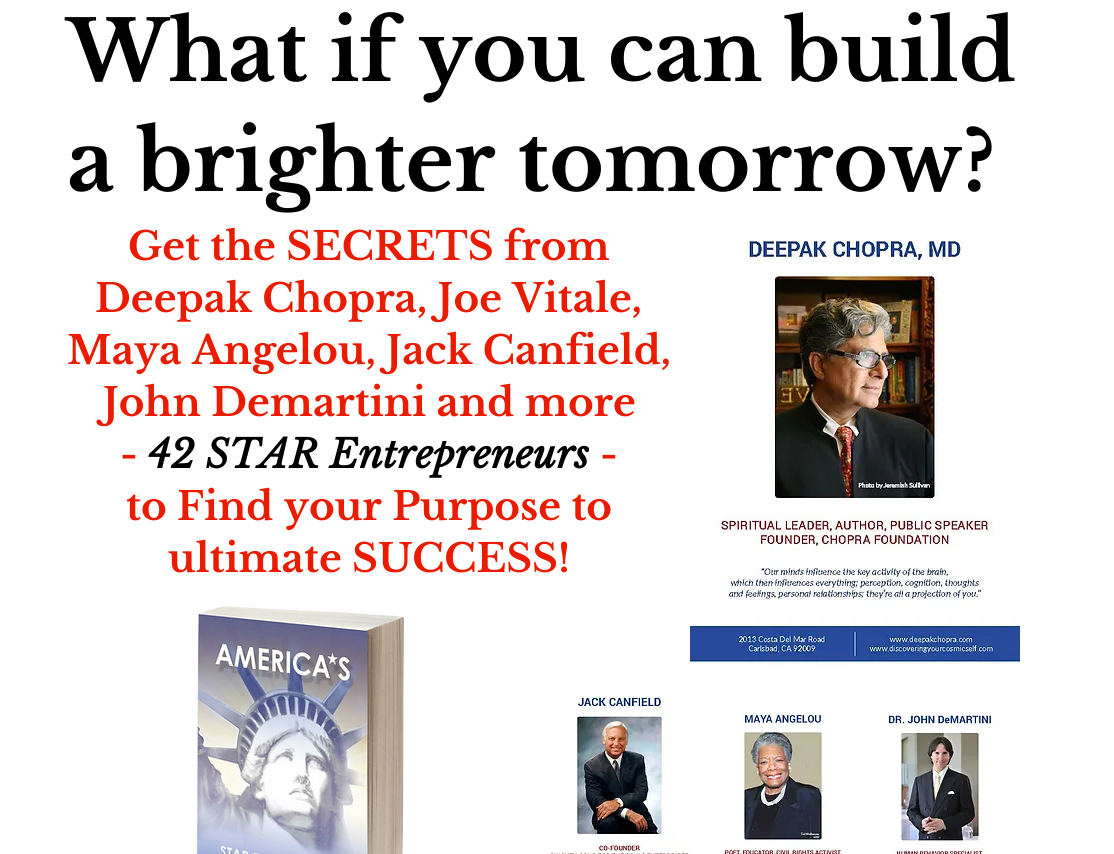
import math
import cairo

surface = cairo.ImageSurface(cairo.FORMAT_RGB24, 1114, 854)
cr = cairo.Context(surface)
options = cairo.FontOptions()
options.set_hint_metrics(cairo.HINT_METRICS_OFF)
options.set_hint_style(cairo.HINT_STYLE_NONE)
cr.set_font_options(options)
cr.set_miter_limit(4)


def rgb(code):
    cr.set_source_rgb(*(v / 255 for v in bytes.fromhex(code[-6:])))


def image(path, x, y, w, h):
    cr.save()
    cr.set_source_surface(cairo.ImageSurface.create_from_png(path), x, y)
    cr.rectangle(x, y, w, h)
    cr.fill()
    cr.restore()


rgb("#ffffff")
cr.paint()
image("img/1.png", 690, 239, 330, 426)
image("img/2.png", 196, 606, 208, 248)
image("img/3.png", 549, 696, 143, 158)
image("img/4.png", 724, 712, 121, 142)
image("img/5.png", 886, 711, 110, 143)
cr.select_font_face("Libre Baskerville", cairo.FONT_SLANT_NORMAL, cairo.FONT_WEIGHT_BOLD)
cr.set_font_size(83)
rgb("#000000")
cr.move_to(67, 81)
cr.show_text("What if you can build")
cr.move_to(67, 191)
cr.show_text("a brighter tomorrow?")
cr.set_font_size(39)
rgb("#eb1b00")
for x, y, s in [
    (128, 260, "Get the SECRETS from"),
    (95, 312, "Deepak Chopra, Joe Vitale,"),
    (67, 364, "Maya Angelou, Jack Canfield,"),
    (103, 416, "John Demartini and more"),
    (120, 468, "-"),
]:
    cr.move_to(x, y)
    cr.show_text(s)
cr.select_font_face("Libre Baskerville", cairo.FONT_SLANT_ITALIC, cairo.FONT_WEIGHT_BOLD)
rgb("#000000")
cr.move_to(148, 468)
cr.show_text("42 STAR Entrepreneurs")
cr.select_font_face("Libre Baskerville", cairo.FONT_SLANT_NORMAL, cairo.FONT_WEIGHT_BOLD)
rgb("#eb1b00")
for x, y, s in [
    (600, 468, "-"),
    (126, 520, "to Find your Purpose to"),
    (168, 572, "ultimate SUCCESS!"),
]:
    cr.move_to(x, y)
    cr.show_text(s)
surface.write_to_png("page.png")
